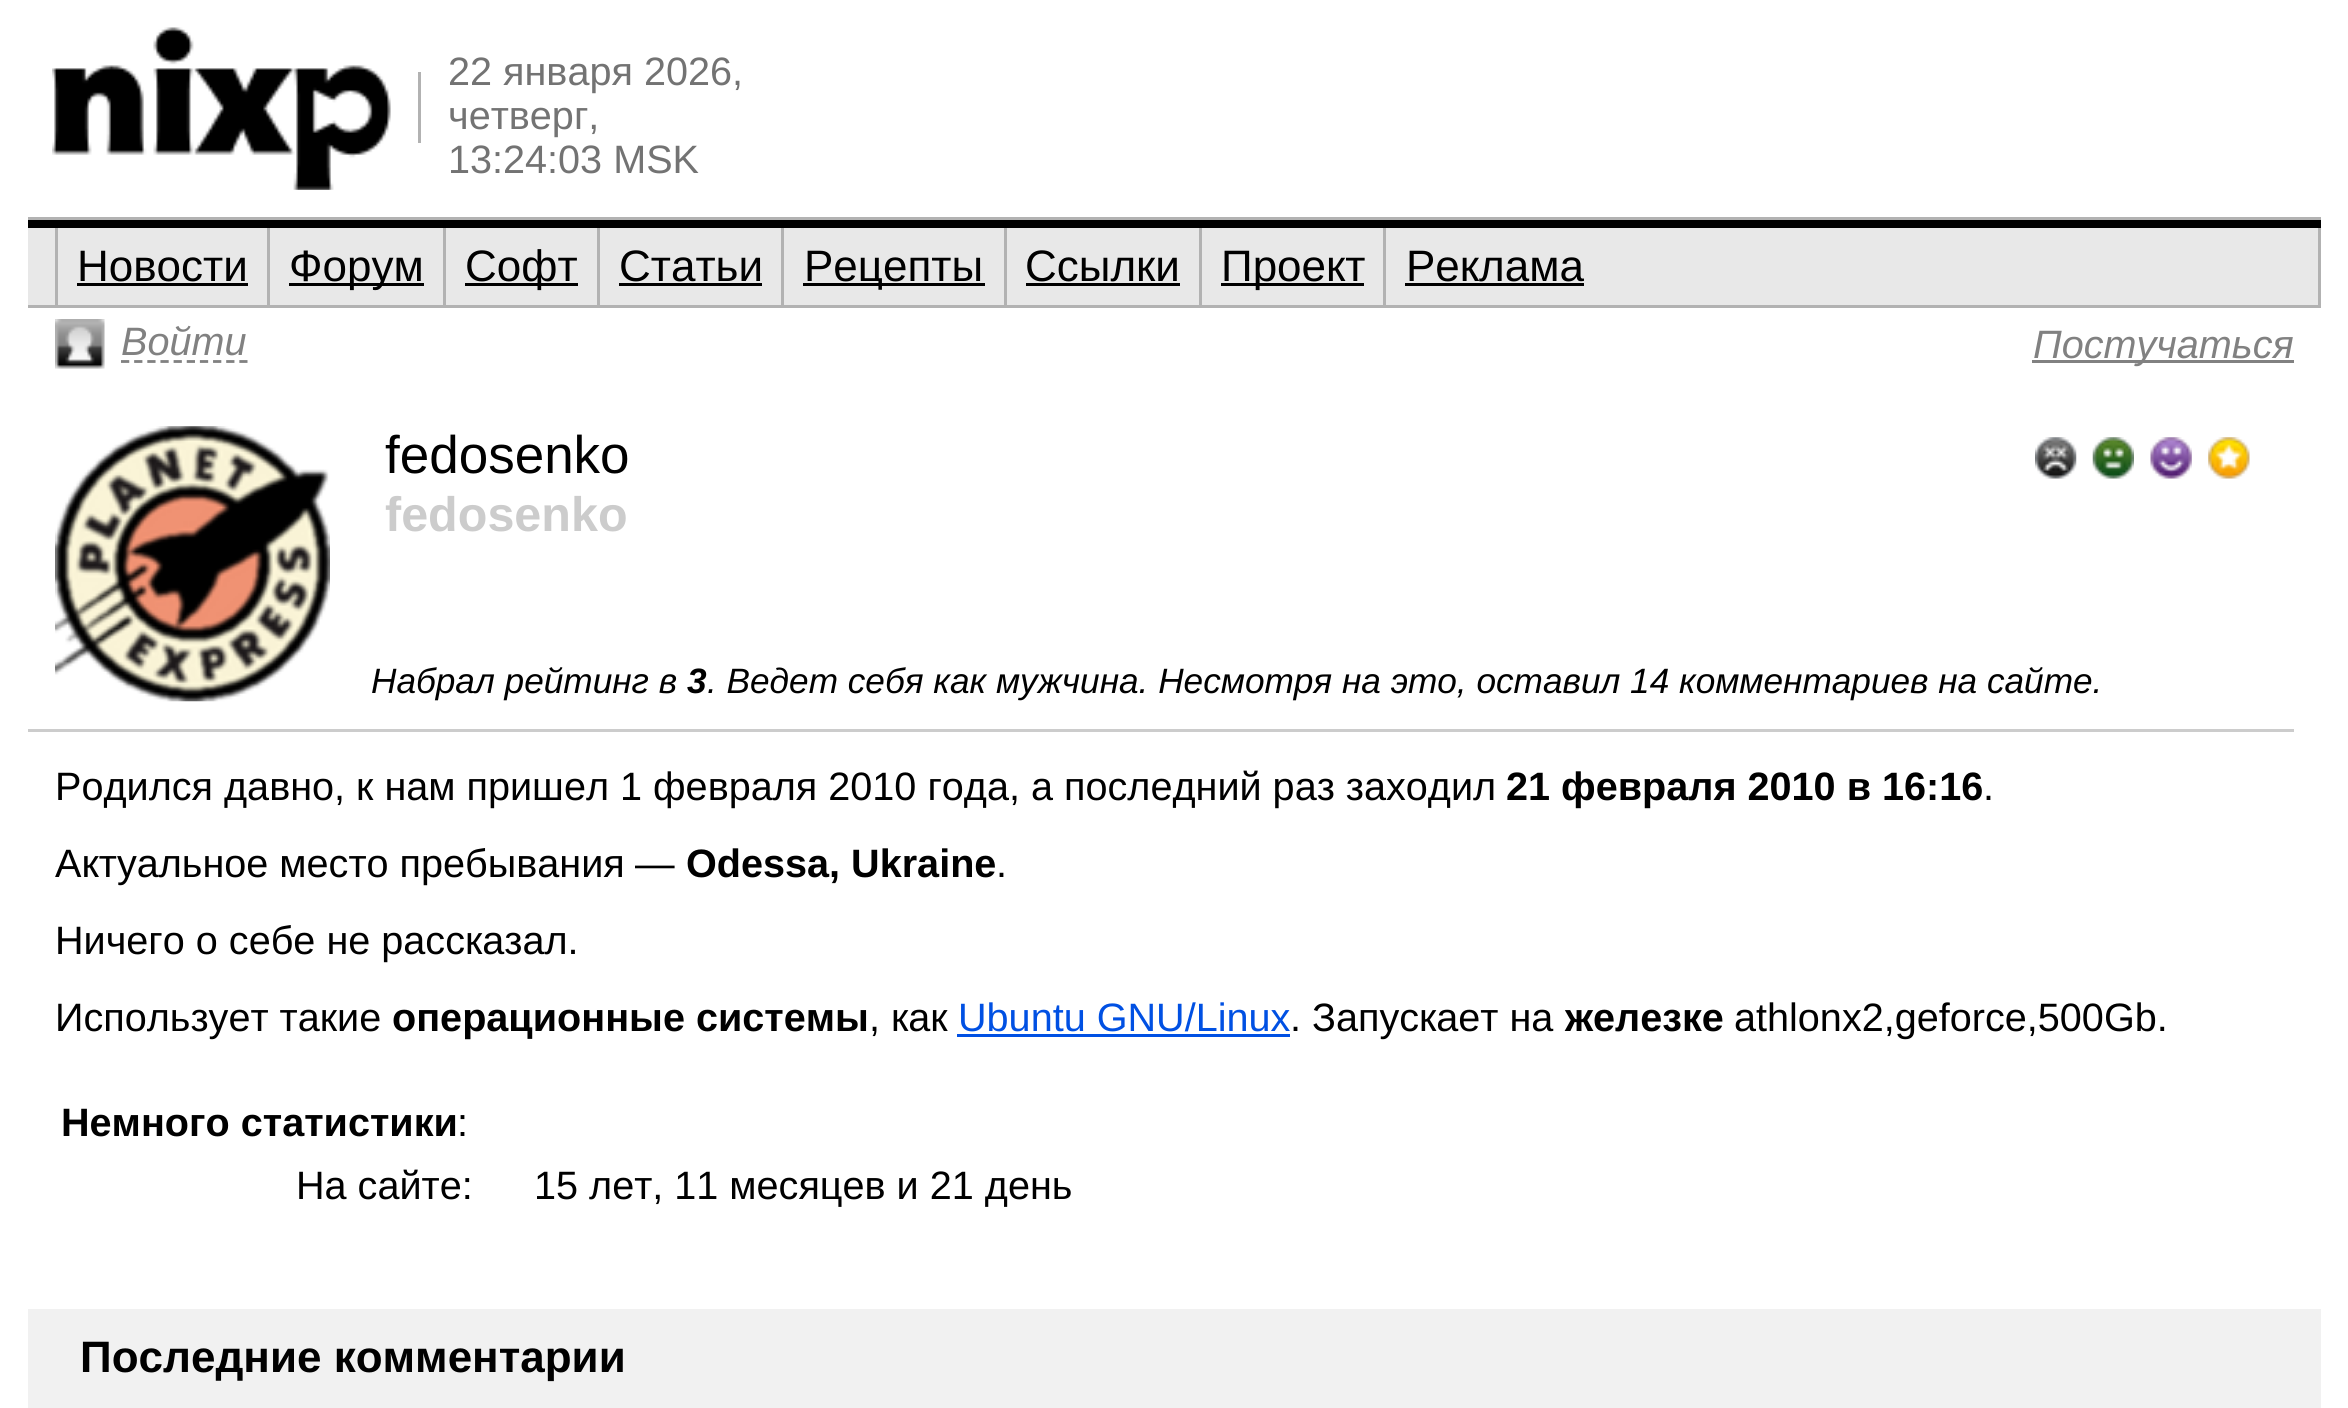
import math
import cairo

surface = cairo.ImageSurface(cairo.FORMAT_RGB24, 2348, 1408)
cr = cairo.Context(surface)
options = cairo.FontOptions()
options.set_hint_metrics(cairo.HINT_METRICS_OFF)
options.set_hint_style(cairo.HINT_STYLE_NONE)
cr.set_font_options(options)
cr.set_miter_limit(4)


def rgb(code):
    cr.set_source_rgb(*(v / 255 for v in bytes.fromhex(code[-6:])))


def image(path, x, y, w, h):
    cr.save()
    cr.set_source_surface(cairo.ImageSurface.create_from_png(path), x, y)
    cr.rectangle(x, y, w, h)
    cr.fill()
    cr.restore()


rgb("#ffffff")
cr.paint()
rgb("#b2b2b2")
cr.rectangle(28, 217, 2293, 3)
cr.fill()
image("img/1.png", 52, 27, 339, 163)
for x, y, w, h, color in [
    (418, 72, 3, 71, "#b2b2b2"),
    (28, 228, 2290, 77, "#e8e8e8"),
    (28, 220, 2293, 8, "#000000"),
    (28, 305, 2293, 3, "#b2b2b2"),
    (2318, 228, 3, 77, "#b2b2b2"),
    (55, 228, 3, 77, "#b2b2b2"),
    (77, 283, 171, 3, "#000000"),
    (267, 228, 3, 77, "#b2b2b2"),
    (289, 283, 135, 3, "#000000"),
    (443, 228, 3, 77, "#b2b2b2"),
    (465, 283, 113, 3, "#000000"),
    (597, 228, 3, 77, "#b2b2b2"),
    (619, 283, 143, 3, "#000000"),
    (781, 228, 3, 77, "#b2b2b2"),
    (803, 283, 182, 3, "#000000"),
    (1004, 228, 3, 77, "#b2b2b2"),
    (1026, 283, 154, 3, "#000000"),
    (1199, 228, 3, 77, "#b2b2b2"),
    (1221, 283, 143, 3, "#000000"),
    (1383, 228, 3, 77, "#b2b2b2"),
    (1405, 283, 179, 3, "#000000"),
]:
    rgb(color)
    cr.rectangle(x, y, w, h)
    cr.fill()
image("img/2.png", 55, 319, 50, 50)
cr.new_path()
cr.move_to(121, 361.5)
cr.line_to(247.5, 361.5)
rgb("#818181")
cr.set_line_width(2.8)
cr.set_dash([8.25, 4.9])
cr.stroke()
cr.rectangle(2032, 360, 262, 3)
cr.fill()
rgb("#cccccc")
cr.rectangle(28, 729, 2266, 3)
cr.fill()
image("img/3.png", 55, 426, 275, 276)
image("img/4.png", 2035, 437, 42, 42)
image("img/5.png", 2092, 437, 42, 42)
image("img/6.png", 2150, 437, 42, 42)
image("img/7.png", 2208, 437, 42, 42)
rgb("#0050e3")
cr.rectangle(957, 1034, 333, 3)
cr.fill()
rgb("#f1f1f1")
cr.rectangle(28, 1309, 2293, 99)
cr.fill()
cr.select_font_face("Liberation Sans")
cr.set_font_size(39.6)
rgb("#737373")
for x, y, s in [
    (448, 85, "22 января 2026,"),
    (448, 129, "четверг,"),
    (448, 173, "13:24:03 MSK"),
]:
    cr.move_to(x, y)
    cr.show_text(s)
cr.set_font_size(44)
rgb("#000000")
for x, y, s in [
    (77, 281, "Новости"),
    (289, 281, "Форум"),
    (465, 281, "Софт"),
    (619, 281, "Статьи"),
    (804, 281, "Рецепты"),
    (1025, 281, "Ссылки"),
    (1221, 281, "Проект"),
    (1406, 281, "Реклама"),
]:
    cr.move_to(x, y)
    cr.show_text(s)
cr.select_font_face("Liberation Sans", cairo.FONT_SLANT_ITALIC)
cr.set_font_size(39.6)
rgb("#818181")
cr.move_to(121, 355)
cr.show_text("Войти")
cr.move_to(2033, 358)
cr.show_text("Постучаться")
cr.select_font_face("Liberation Sans")
cr.set_font_size(53)
rgb("#000000")
cr.move_to(385, 473)
cr.show_text("fedosenko")
cr.select_font_face("Liberation Sans", cairo.FONT_SLANT_NORMAL, cairo.FONT_WEIGHT_BOLD)
cr.set_font_size(48.5)
rgb("#cccccc")
cr.move_to(385, 531)
cr.show_text("fedosenko")
cr.select_font_face("Liberation Sans", cairo.FONT_SLANT_ITALIC)
cr.set_font_size(35.2)
rgb("#000000")
cr.move_to(371, 693)
cr.show_text("Набрал рейтинг в")
cr.select_font_face("Liberation Sans", cairo.FONT_SLANT_ITALIC, cairo.FONT_WEIGHT_BOLD)
cr.move_to(687, 693)
cr.show_text("3")
cr.select_font_face("Liberation Sans", cairo.FONT_SLANT_ITALIC)
cr.move_to(707, 693)
cr.show_text(". Ведет себя как мужчина. Несмотря на это, оставил 14 комментариев на сайте.")
cr.select_font_face("Liberation Sans")
cr.set_font_size(39.6)
cr.move_to(55, 800)
cr.show_text("Родился давно, к нам пришел 1 февраля 2010 года, а последний раз заходил")
cr.select_font_face("Liberation Sans", cairo.FONT_SLANT_NORMAL, cairo.FONT_WEIGHT_BOLD)
cr.move_to(1506, 800)
cr.show_text("21 февраля 2010 в 16:16")
cr.select_font_face("Liberation Sans")
for x, y, s in [
    (1983, 800, "."),
    (55, 877, "Актуальное место пребывания"),
    (635, 877, "—"),
]:
    cr.move_to(x, y)
    cr.show_text(s)
cr.select_font_face("Liberation Sans", cairo.FONT_SLANT_NORMAL, cairo.FONT_WEIGHT_BOLD)
cr.move_to(686, 877)
cr.show_text("Odessa, Ukraine")
cr.select_font_face("Liberation Sans")
for x, y, s in [
    (996, 877, "."),
    (55, 954, "Ничего о себе не рассказал."),
    (55, 1031, "Использует такие"),
]:
    cr.move_to(x, y)
    cr.show_text(s)
cr.select_font_face("Liberation Sans", cairo.FONT_SLANT_NORMAL, cairo.FONT_WEIGHT_BOLD)
cr.move_to(392, 1031)
cr.show_text("операционные системы")
cr.select_font_face("Liberation Sans")
cr.move_to(869, 1031)
cr.show_text(", как")
rgb("#0050e3")
cr.move_to(958, 1031)
cr.show_text("Ubuntu GNU/Linux")
rgb("#000000")
cr.move_to(1290, 1031)
cr.show_text(". Запускает на")
cr.select_font_face("Liberation Sans", cairo.FONT_SLANT_NORMAL, cairo.FONT_WEIGHT_BOLD)
cr.move_to(1565, 1031)
cr.show_text("железке")
cr.select_font_face("Liberation Sans")
cr.move_to(1734, 1031)
cr.show_text("athlonx2,geforce,500Gb.")
cr.select_font_face("Liberation Sans", cairo.FONT_SLANT_NORMAL, cairo.FONT_WEIGHT_BOLD)
cr.move_to(61, 1136)
cr.show_text("Немного статистики")
cr.select_font_face("Liberation Sans")
for x, y, s in [
    (457, 1136, ":"),
    (296, 1199, "На сайте:"),
    (534, 1199, "15 лет, 11 месяцев и 21 день"),
]:
    cr.move_to(x, y)
    cr.show_text(s)
cr.select_font_face("Liberation Sans", cairo.FONT_SLANT_NORMAL, cairo.FONT_WEIGHT_BOLD)
cr.set_font_size(44)
cr.move_to(80, 1372)
cr.show_text("Последние комментарии")
surface.write_to_png("page.png")
